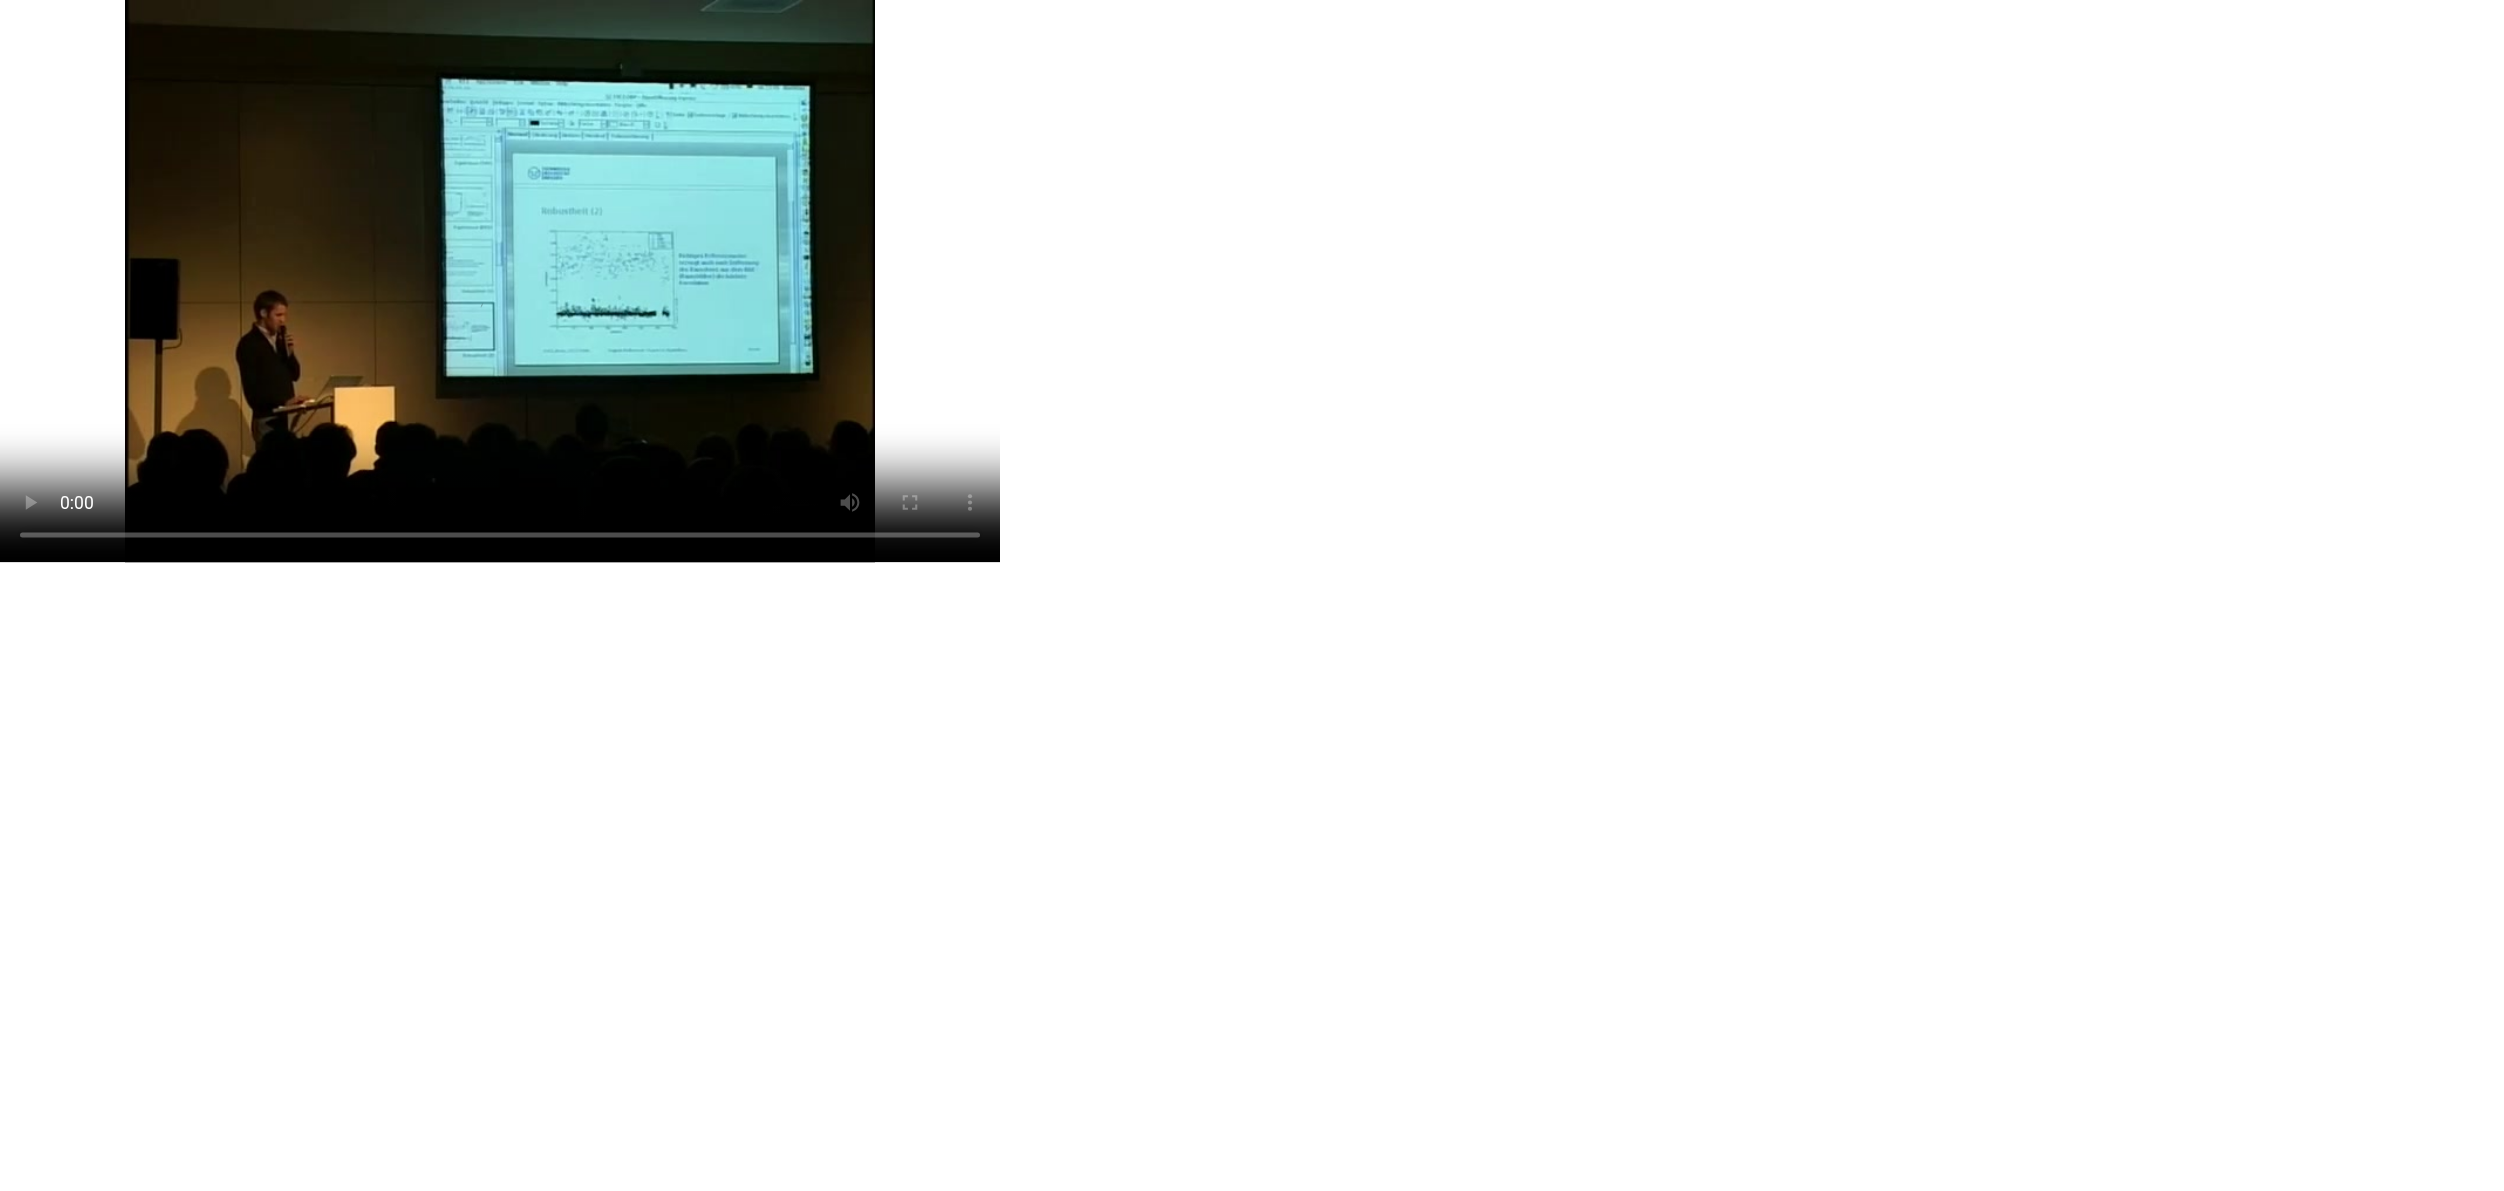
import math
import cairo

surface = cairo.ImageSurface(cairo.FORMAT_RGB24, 2504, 1191)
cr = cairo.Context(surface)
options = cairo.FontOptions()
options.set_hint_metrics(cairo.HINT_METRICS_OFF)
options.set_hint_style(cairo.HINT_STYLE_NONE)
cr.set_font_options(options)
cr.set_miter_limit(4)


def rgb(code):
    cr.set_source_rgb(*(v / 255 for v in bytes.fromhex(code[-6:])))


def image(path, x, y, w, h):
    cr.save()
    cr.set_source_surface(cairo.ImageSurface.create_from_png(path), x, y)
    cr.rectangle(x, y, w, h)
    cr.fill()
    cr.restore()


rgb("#ffffff")
cr.paint()
image("img/1.png", 0, 0, 1000, 563)
surface.write_to_png("page.png")
